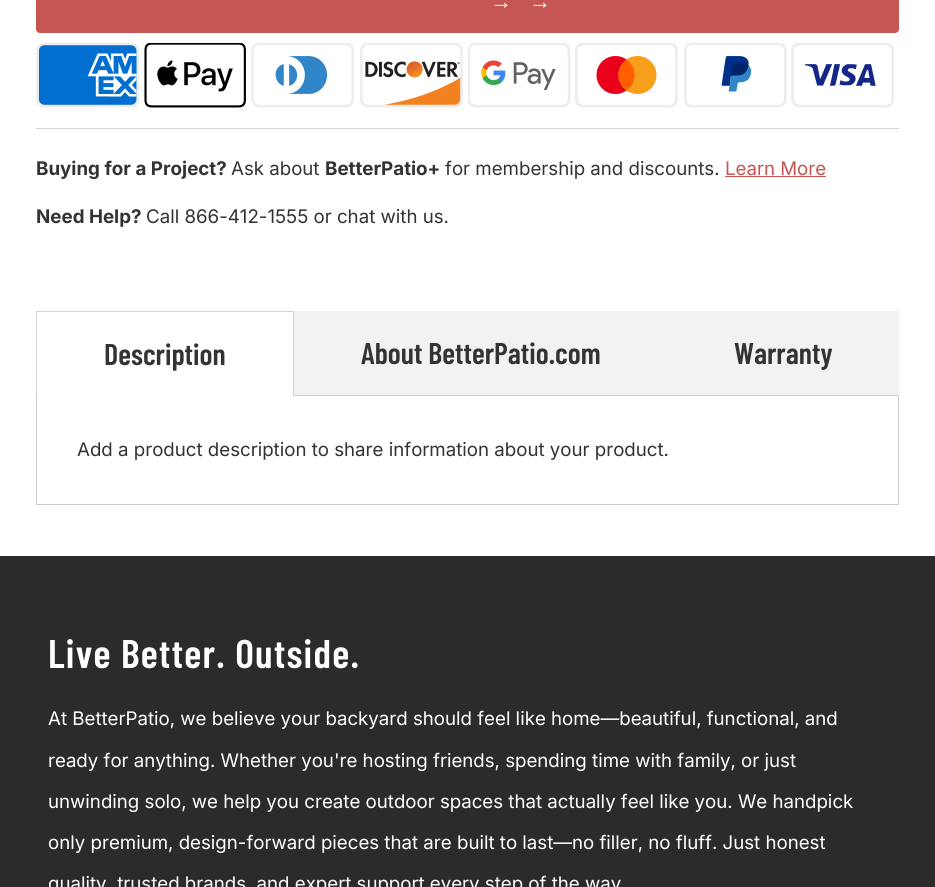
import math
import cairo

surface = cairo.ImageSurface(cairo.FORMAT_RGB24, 935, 887)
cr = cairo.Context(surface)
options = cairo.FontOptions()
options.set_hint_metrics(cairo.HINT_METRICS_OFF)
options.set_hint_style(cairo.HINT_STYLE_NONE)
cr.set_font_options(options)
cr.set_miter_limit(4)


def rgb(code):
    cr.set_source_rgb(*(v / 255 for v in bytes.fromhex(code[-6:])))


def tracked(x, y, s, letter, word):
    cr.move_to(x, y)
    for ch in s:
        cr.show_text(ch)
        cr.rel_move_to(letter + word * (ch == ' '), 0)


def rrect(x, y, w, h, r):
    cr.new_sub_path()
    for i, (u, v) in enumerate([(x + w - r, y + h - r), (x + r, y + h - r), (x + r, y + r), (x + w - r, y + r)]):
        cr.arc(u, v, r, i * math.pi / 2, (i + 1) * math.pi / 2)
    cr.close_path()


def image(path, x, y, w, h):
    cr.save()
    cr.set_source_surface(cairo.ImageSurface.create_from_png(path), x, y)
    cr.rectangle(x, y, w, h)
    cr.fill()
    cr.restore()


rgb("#ffffff")
cr.paint()
rgb("#d3d3d3")
cr.rectangle(36, 128, 863, 1)
cr.fill()
rgb("#c65652")
rrect(36.5, -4.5, 862, 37, 3.5)
cr.fill_preserve()
cr.set_line_width(1)
cr.stroke()
image("img/1.png", 36, 43, 103, 65)
image("img/2.png", 144, 43, 102, 65)
image("img/3.png", 251, 43, 103, 65)
image("img/4.png", 360, 43, 103, 65)
image("img/5.png", 468, 43, 103, 65)
image("img/6.png", 575, 43, 103, 65)
image("img/7.png", 684, 43, 103, 65)
image("img/8.png", 791, 43, 103, 65)
for x, y, w, h, color in [
    (725, 176, 101, 1, "#c65652"),
    (36, 311, 258, 1, "#d3d3d3"),
    (293, 311, 1, 85, "#d3d3d3"),
    (36, 311, 1, 85, "#d3d3d3"),
    (294, 311, 605, 84, "#f2f2f2"),
    (294, 395, 605, 1, "#cccccc"),
    (898, 396, 1, 109, "#cccccc"),
    (36, 504, 863, 1, "#cccccc"),
    (36, 396, 1, 109, "#cccccc"),
    (0, 556, 935, 331, "#2b2b2b"),
]:
    rgb(color)
    cr.rectangle(x, y, w, h)
    cr.fill()
cr.select_font_face("Liberation Sans", cairo.FONT_SLANT_NORMAL, cairo.FONT_WEIGHT_BOLD)
cr.set_font_size(22)
rgb("#ffffff")
tracked(490, 9, "→", 1.25, 0)
tracked(529, 9, "→", 1.25, 0)
cr.select_font_face("Inter", cairo.FONT_SLANT_NORMAL, cairo.FONT_WEIGHT_BOLD)
cr.set_font_size(18.75)
rgb("#333333")
cr.move_to(36, 175)
cr.show_text("Buying for a Project?")
cr.select_font_face("Inter")
cr.move_to(231, 175)
cr.show_text("Ask about")
cr.select_font_face("Inter", cairo.FONT_SLANT_NORMAL, cairo.FONT_WEIGHT_BOLD)
cr.move_to(325, 175)
cr.show_text("BetterPatio+")
cr.select_font_face("Inter")
cr.move_to(445, 175)
cr.show_text("for membership and discounts.")
rgb("#c65652")
cr.move_to(725, 175)
cr.show_text("Learn More")
cr.select_font_face("Inter", cairo.FONT_SLANT_NORMAL, cairo.FONT_WEIGHT_BOLD)
rgb("#333333")
cr.move_to(36, 223)
cr.show_text("Need Help?")
cr.select_font_face("Inter")
cr.move_to(146, 223)
cr.show_text("Call 866-412-1555 or chat with us.")
cr.select_font_face("Barlow Condensed SemiBold")
cr.set_font_size(30)
for x, y, s in [
    (104, 365, "Description"),
    (361, 364, "About BetterPatio.com"),
    (734, 364, "Warranty"),
]:
    cr.move_to(x, y)
    cr.show_text(s)
cr.select_font_face("Inter")
cr.set_font_size(18.75)
cr.move_to(77, 456)
cr.show_text("Add a product description to share information about your product.")
cr.select_font_face("Barlow Condensed SemiBold")
cr.set_font_size(40)
rgb("#ffffff")
tracked(48, 668, "Live Better. Outside.", 1.25, 0)
cr.select_font_face("Inter")
cr.set_font_size(18.75)
for x, y, s in [
    (48, 725, "At BetterPatio, we believe your backyard should feel like home—beautiful, functional, and"),
    (48, 767, "ready for anything. Whether you're hosting friends, spending time with family, or just"),
    (48, 808, "unwinding solo, we help you create outdoor spaces that actually feel like you. We handpick"),
    (48, 849, "only premium, design-forward pieces that are built to last—no filler, no fluff. Just honest"),
    (48, 890, "quality, trusted brands, and expert support every step of the way"),
]:
    cr.move_to(x, y)
    cr.show_text(s)
surface.write_to_png("page.png")
